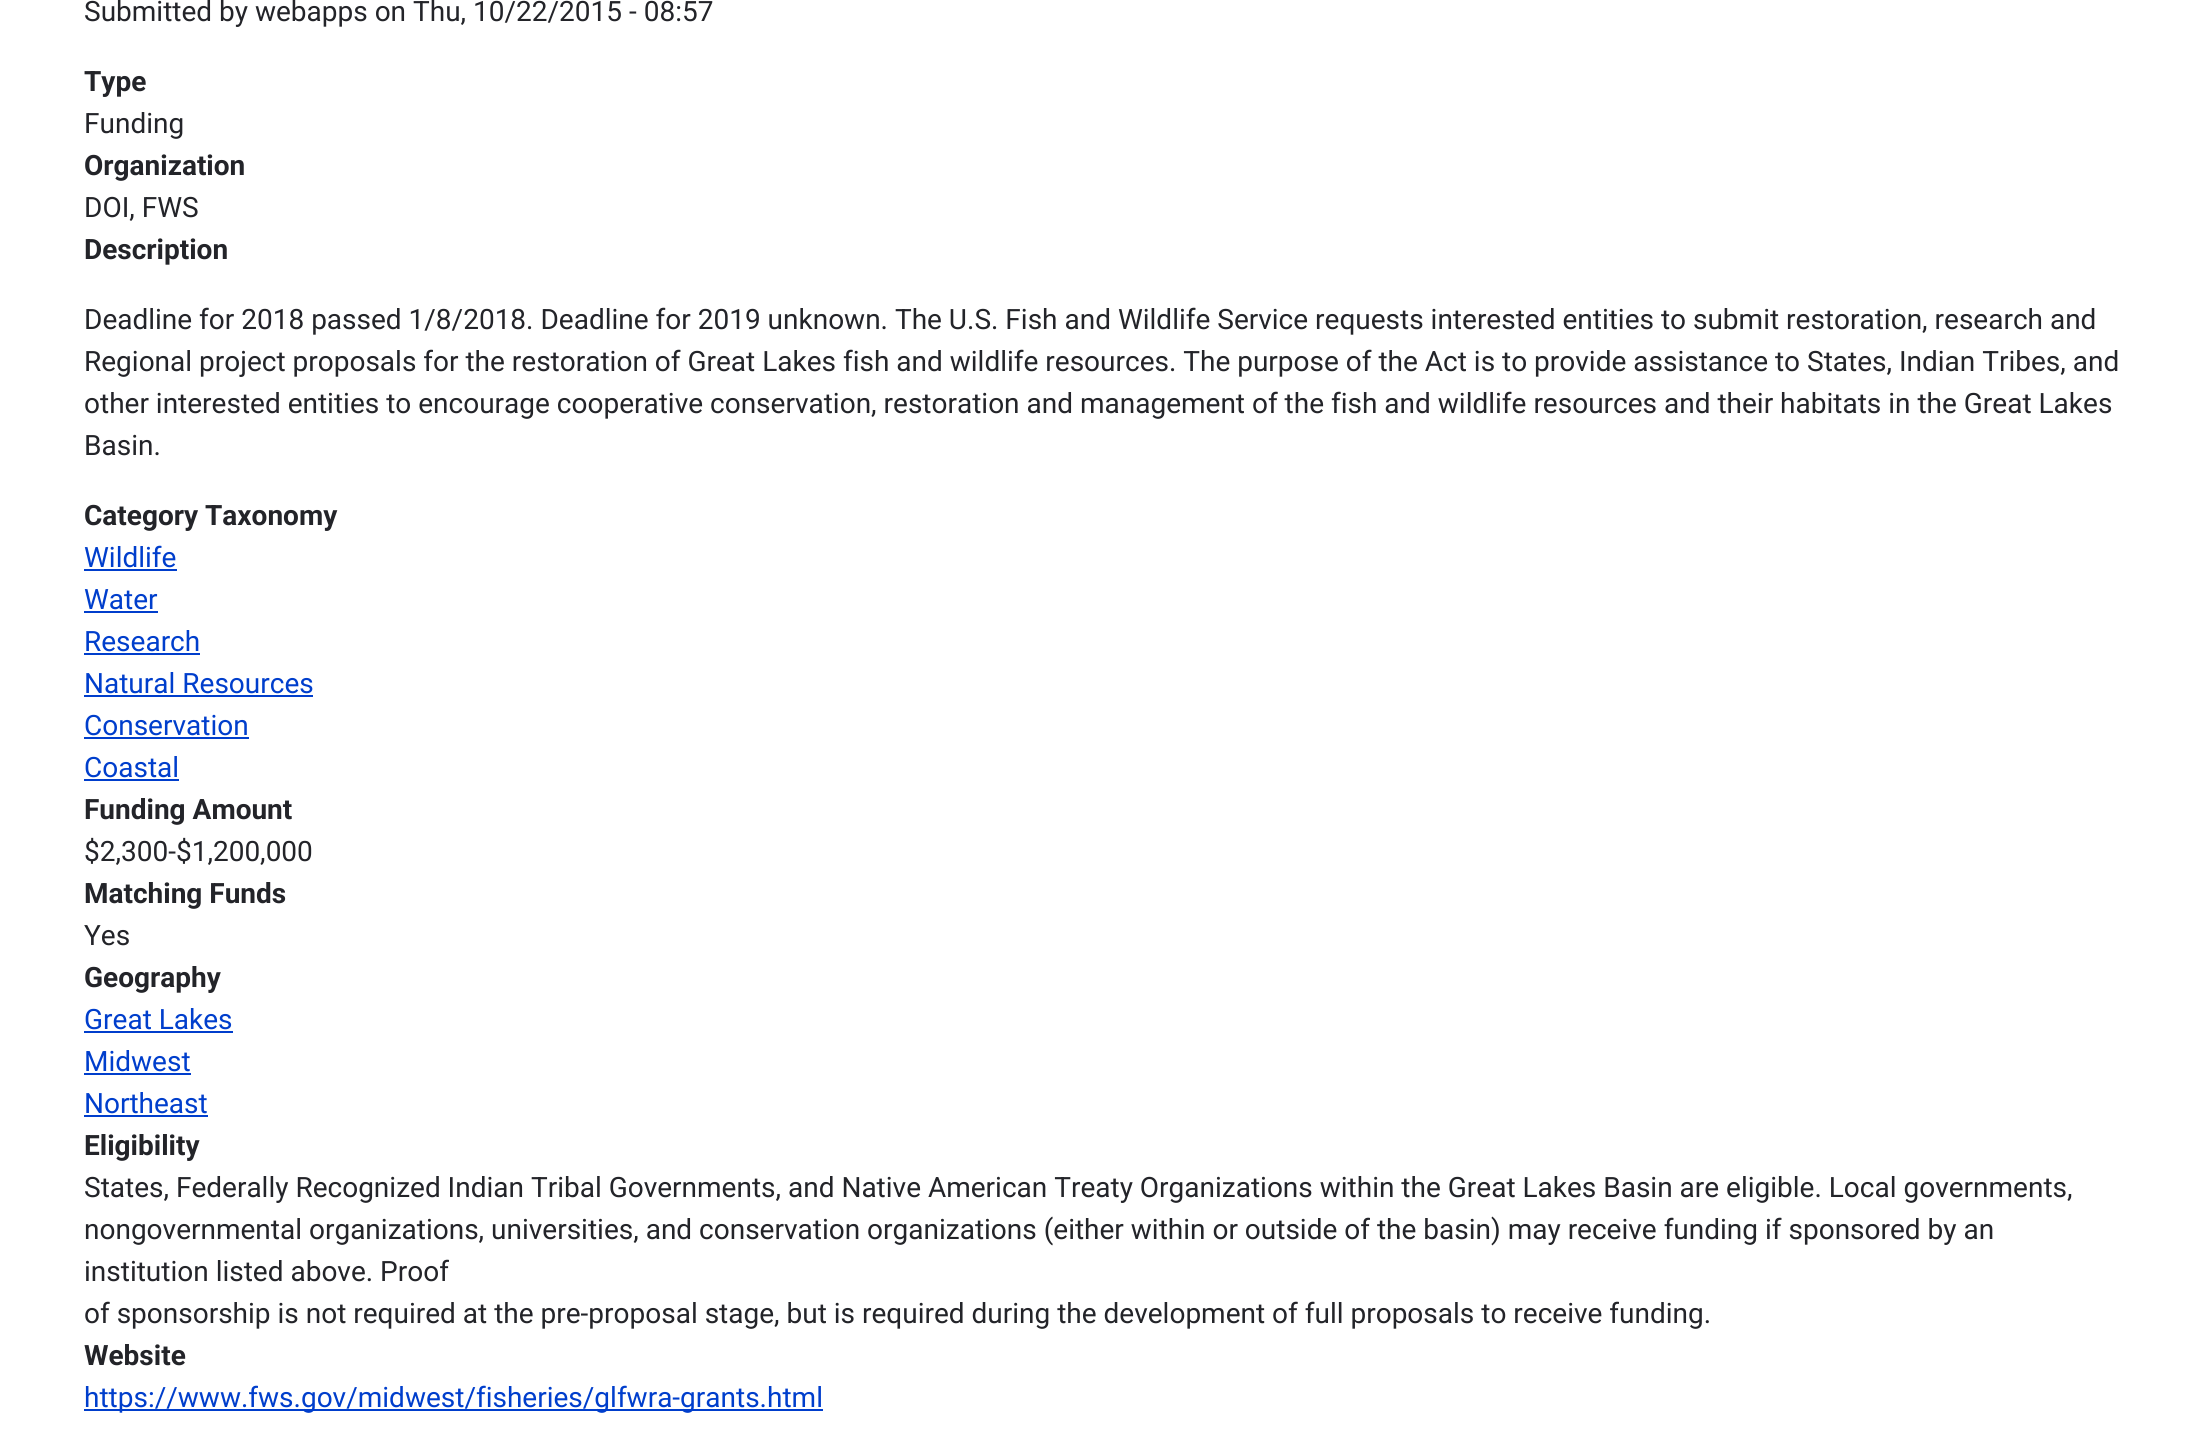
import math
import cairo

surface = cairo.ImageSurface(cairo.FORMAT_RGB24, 2202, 1440)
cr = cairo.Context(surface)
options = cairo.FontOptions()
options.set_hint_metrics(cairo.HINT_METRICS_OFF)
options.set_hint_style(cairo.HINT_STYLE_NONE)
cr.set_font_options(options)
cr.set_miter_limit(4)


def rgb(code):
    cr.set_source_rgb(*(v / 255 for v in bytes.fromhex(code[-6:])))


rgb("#ffffff")
cr.paint()
for x, y, w, h, color in [
    (84, 569, 93, 2, "#003ecc"),
    (84, 611, 74, 2, "#003ecc"),
    (84, 653, 116, 2, "#003ecc"),
    (84, 695, 229, 2, "#003ecc"),
    (84, 737, 165, 2, "#003ecc"),
    (84, 779, 95, 2, "#003ecc"),
    (84, 1031, 149, 2, "#003ecc"),
    (84, 1073, 107, 2, "#003ecc"),
    (84, 1115, 124, 2, "#003ecc"),
    (84, 1409, 739, 2, "#003ecc"),
]:
    rgb(color)
    cr.rectangle(x, y, w, h)
    cr.fill()
cr.select_font_face("Roboto")
cr.set_font_size(28)
rgb("#232429")
cr.move_to(84, 21)
cr.show_text("Submitted by webapps on Thu, 10/22/2015 - 08:57")
cr.select_font_face("Roboto", cairo.FONT_SLANT_NORMAL, cairo.FONT_WEIGHT_BOLD)
cr.move_to(84, 91)
cr.show_text("Type")
cr.select_font_face("Roboto")
cr.move_to(84, 133)
cr.show_text("Funding")
cr.select_font_face("Roboto", cairo.FONT_SLANT_NORMAL, cairo.FONT_WEIGHT_BOLD)
cr.move_to(84, 175)
cr.show_text("Organization")
cr.select_font_face("Roboto")
cr.move_to(84, 217)
cr.show_text("DOI, FWS")
cr.select_font_face("Roboto", cairo.FONT_SLANT_NORMAL, cairo.FONT_WEIGHT_BOLD)
cr.move_to(84, 259)
cr.show_text("Description")
cr.select_font_face("Roboto")
for x, y, s in [
    (84, 329, "Deadline for 2018 passed 1/8/2018. Deadline for 2019 unknown. The U.S. Fish and Wildlife Service requests interested entities to submit restoration, research and"),
    (84, 371, "Regional project proposals for the restoration of Great Lakes fish and wildlife resources. The purpose of the Act is to provide assistance to States, Indian Tribes, and"),
    (84, 413, "other interested entities to encourage cooperative conservation, restoration and management of the fish and wildlife resources and their habitats in the Great Lakes"),
    (84, 455, "Basin."),
]:
    cr.move_to(x, y)
    cr.show_text(s)
cr.select_font_face("Roboto", cairo.FONT_SLANT_NORMAL, cairo.FONT_WEIGHT_BOLD)
cr.move_to(84, 525)
cr.show_text("Category Taxonomy")
cr.select_font_face("Roboto")
rgb("#003ecc")
for x, y, s in [
    (84, 567, "Wildlife"),
    (84, 609, "Water"),
    (84, 651, "Research"),
    (84, 693, "Natural Resources"),
    (84, 735, "Conservation"),
    (84, 777, "Coastal"),
]:
    cr.move_to(x, y)
    cr.show_text(s)
cr.select_font_face("Roboto", cairo.FONT_SLANT_NORMAL, cairo.FONT_WEIGHT_BOLD)
rgb("#232429")
cr.move_to(84, 819)
cr.show_text("Funding Amount")
cr.select_font_face("Roboto")
cr.move_to(84, 861)
cr.show_text("$2,300-$1,200,000")
cr.select_font_face("Roboto", cairo.FONT_SLANT_NORMAL, cairo.FONT_WEIGHT_BOLD)
cr.move_to(84, 903)
cr.show_text("Matching Funds")
cr.select_font_face("Roboto")
cr.move_to(84, 945)
cr.show_text("Yes")
cr.select_font_face("Roboto", cairo.FONT_SLANT_NORMAL, cairo.FONT_WEIGHT_BOLD)
cr.move_to(84, 987)
cr.show_text("Geography")
cr.select_font_face("Roboto")
rgb("#003ecc")
for x, y, s in [
    (84, 1029, "Great Lakes"),
    (84, 1071, "Midwest"),
    (84, 1113, "Northeast"),
]:
    cr.move_to(x, y)
    cr.show_text(s)
cr.select_font_face("Roboto", cairo.FONT_SLANT_NORMAL, cairo.FONT_WEIGHT_BOLD)
rgb("#232429")
cr.move_to(84, 1155)
cr.show_text("Eligibility")
cr.select_font_face("Roboto")
for x, y, s in [
    (84, 1197, "States, Federally Recognized Indian Tribal Governments, and Native American Treaty Organizations within the Great Lakes Basin are eligible. Local governments,"),
    (84, 1239, "nongovernmental organizations, universities, and conservation organizations (either within or outside of the basin) may receive funding if sponsored by an"),
    (84, 1281, "institution listed above. Proof"),
    (84, 1323, "of sponsorship is not required at the pre-proposal stage, but is required during the development of full proposals to receive funding."),
]:
    cr.move_to(x, y)
    cr.show_text(s)
cr.select_font_face("Roboto", cairo.FONT_SLANT_NORMAL, cairo.FONT_WEIGHT_BOLD)
cr.move_to(84, 1365)
cr.show_text("Website")
cr.select_font_face("Roboto")
rgb("#003ecc")
cr.move_to(84, 1407)
cr.show_text("https://www.fws.gov/midwest/fisheries/glfwra-grants.html")
surface.write_to_png("page.png")
